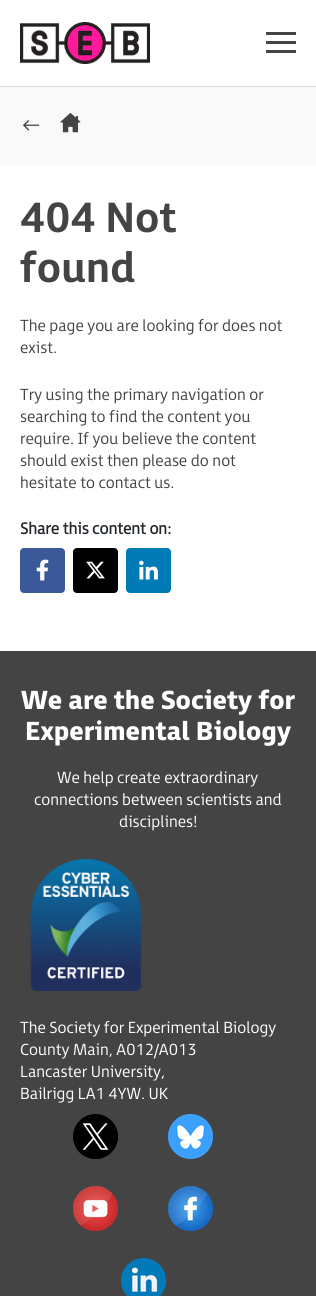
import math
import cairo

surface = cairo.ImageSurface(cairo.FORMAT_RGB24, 316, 1296)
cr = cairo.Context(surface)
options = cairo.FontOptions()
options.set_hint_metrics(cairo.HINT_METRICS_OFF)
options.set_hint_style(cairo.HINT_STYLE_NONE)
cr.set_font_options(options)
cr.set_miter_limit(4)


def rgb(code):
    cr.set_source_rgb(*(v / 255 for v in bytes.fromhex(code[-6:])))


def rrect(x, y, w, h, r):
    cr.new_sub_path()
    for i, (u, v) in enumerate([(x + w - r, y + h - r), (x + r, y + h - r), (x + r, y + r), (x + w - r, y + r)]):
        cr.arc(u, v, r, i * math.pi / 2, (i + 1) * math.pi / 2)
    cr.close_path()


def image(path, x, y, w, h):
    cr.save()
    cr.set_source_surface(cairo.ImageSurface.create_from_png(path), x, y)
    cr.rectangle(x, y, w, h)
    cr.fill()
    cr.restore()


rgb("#ffffff")
cr.paint()
rgb("#d9d9d9")
cr.rectangle(0, 86, 316, 1)
cr.fill()
image("img/1.png", 20, 22, 130, 42)
for x, y, w, h, color in [
    (266, 41, 30, 3, "#444444"),
    (266, 32, 30, 3, "#444444"),
    (266, 50, 30, 3, "#444444"),
    (0, 87, 316, 78, "#f9f9f9"),
]:
    rgb(color)
    cr.rectangle(x, y, w, h)
    cr.fill()
image("img/2.png", 22, 120, 18, 11)
image("img/3.png", 60, 113, 21, 20)
rgb("#3b5998")
rrect(20, 548, 45, 45, 4)
cr.fill()
image("img/4.png", 36, 559, 13, 22)
rgb("#000000")
rrect(73, 548, 45, 45, 4)
cr.fill()
image("img/5.png", 86, 561, 19, 18)
rgb("#007bb5")
rrect(126, 548, 45, 45, 4)
cr.fill()
image("img/6.png", 139, 560, 19, 20)
rgb("#444444")
cr.rectangle(0, 651, 316, 645)
cr.fill()
image("img/7.png", 30, 859, 112, 132)
image("img/8.png", 73, 1114, 45, 45)
image("img/9.png", 168, 1114, 45, 45)
image("img/10.png", 73, 1186, 45, 45)
image("img/11.png", 168, 1186, 45, 45)
image("img/12.png", 121, 1258, 45, 38)
cr.select_font_face("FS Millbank", cairo.FONT_SLANT_NORMAL, cairo.FONT_WEIGHT_BOLD)
cr.set_font_size(42)
cr.move_to(20, 232)
cr.show_text("404 Not")
cr.move_to(20, 282)
cr.show_text("found")
cr.select_font_face("FS Millbank Light")
cr.set_font_size(16)
for x, y, s in [
    (20, 331, "The page you are looking for does not"),
    (20, 353, "exist."),
    (20, 400, "Try using the primary navigation or"),
    (20, 422, "searching to find the content you"),
    (20, 444, "require. If you believe the content"),
    (20, 466, "should exist then please do not"),
    (20, 488, "hesitate to contact us."),
]:
    cr.move_to(x, y)
    cr.show_text(s)
cr.select_font_face("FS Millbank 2", cairo.FONT_SLANT_NORMAL, cairo.FONT_WEIGHT_BOLD)
rgb("#21262b")
cr.move_to(20, 534)
cr.show_text("Share this content on:")
cr.select_font_face("FS Millbank Black")
cr.set_font_size(26)
rgb("#ffffff")
cr.move_to(21, 709)
cr.show_text("We are the Society for")
cr.move_to(25, 740)
cr.show_text("Experimental Biology")
cr.select_font_face("FS Millbank Light")
cr.set_font_size(16)
for x, y, s in [
    (57, 783, "We help create extraordinary"),
    (34, 805, "connections between scientists and"),
    (119, 827, "disciplines!"),
    (20, 1033, "The Society for Experimental Biology"),
    (20, 1055, "County Main, A012/A013"),
    (20, 1077, "Lancaster University,"),
    (20, 1099, "Bailrigg LA1 4YW. UK"),
]:
    cr.move_to(x, y)
    cr.show_text(s)
surface.write_to_png("page.png")
